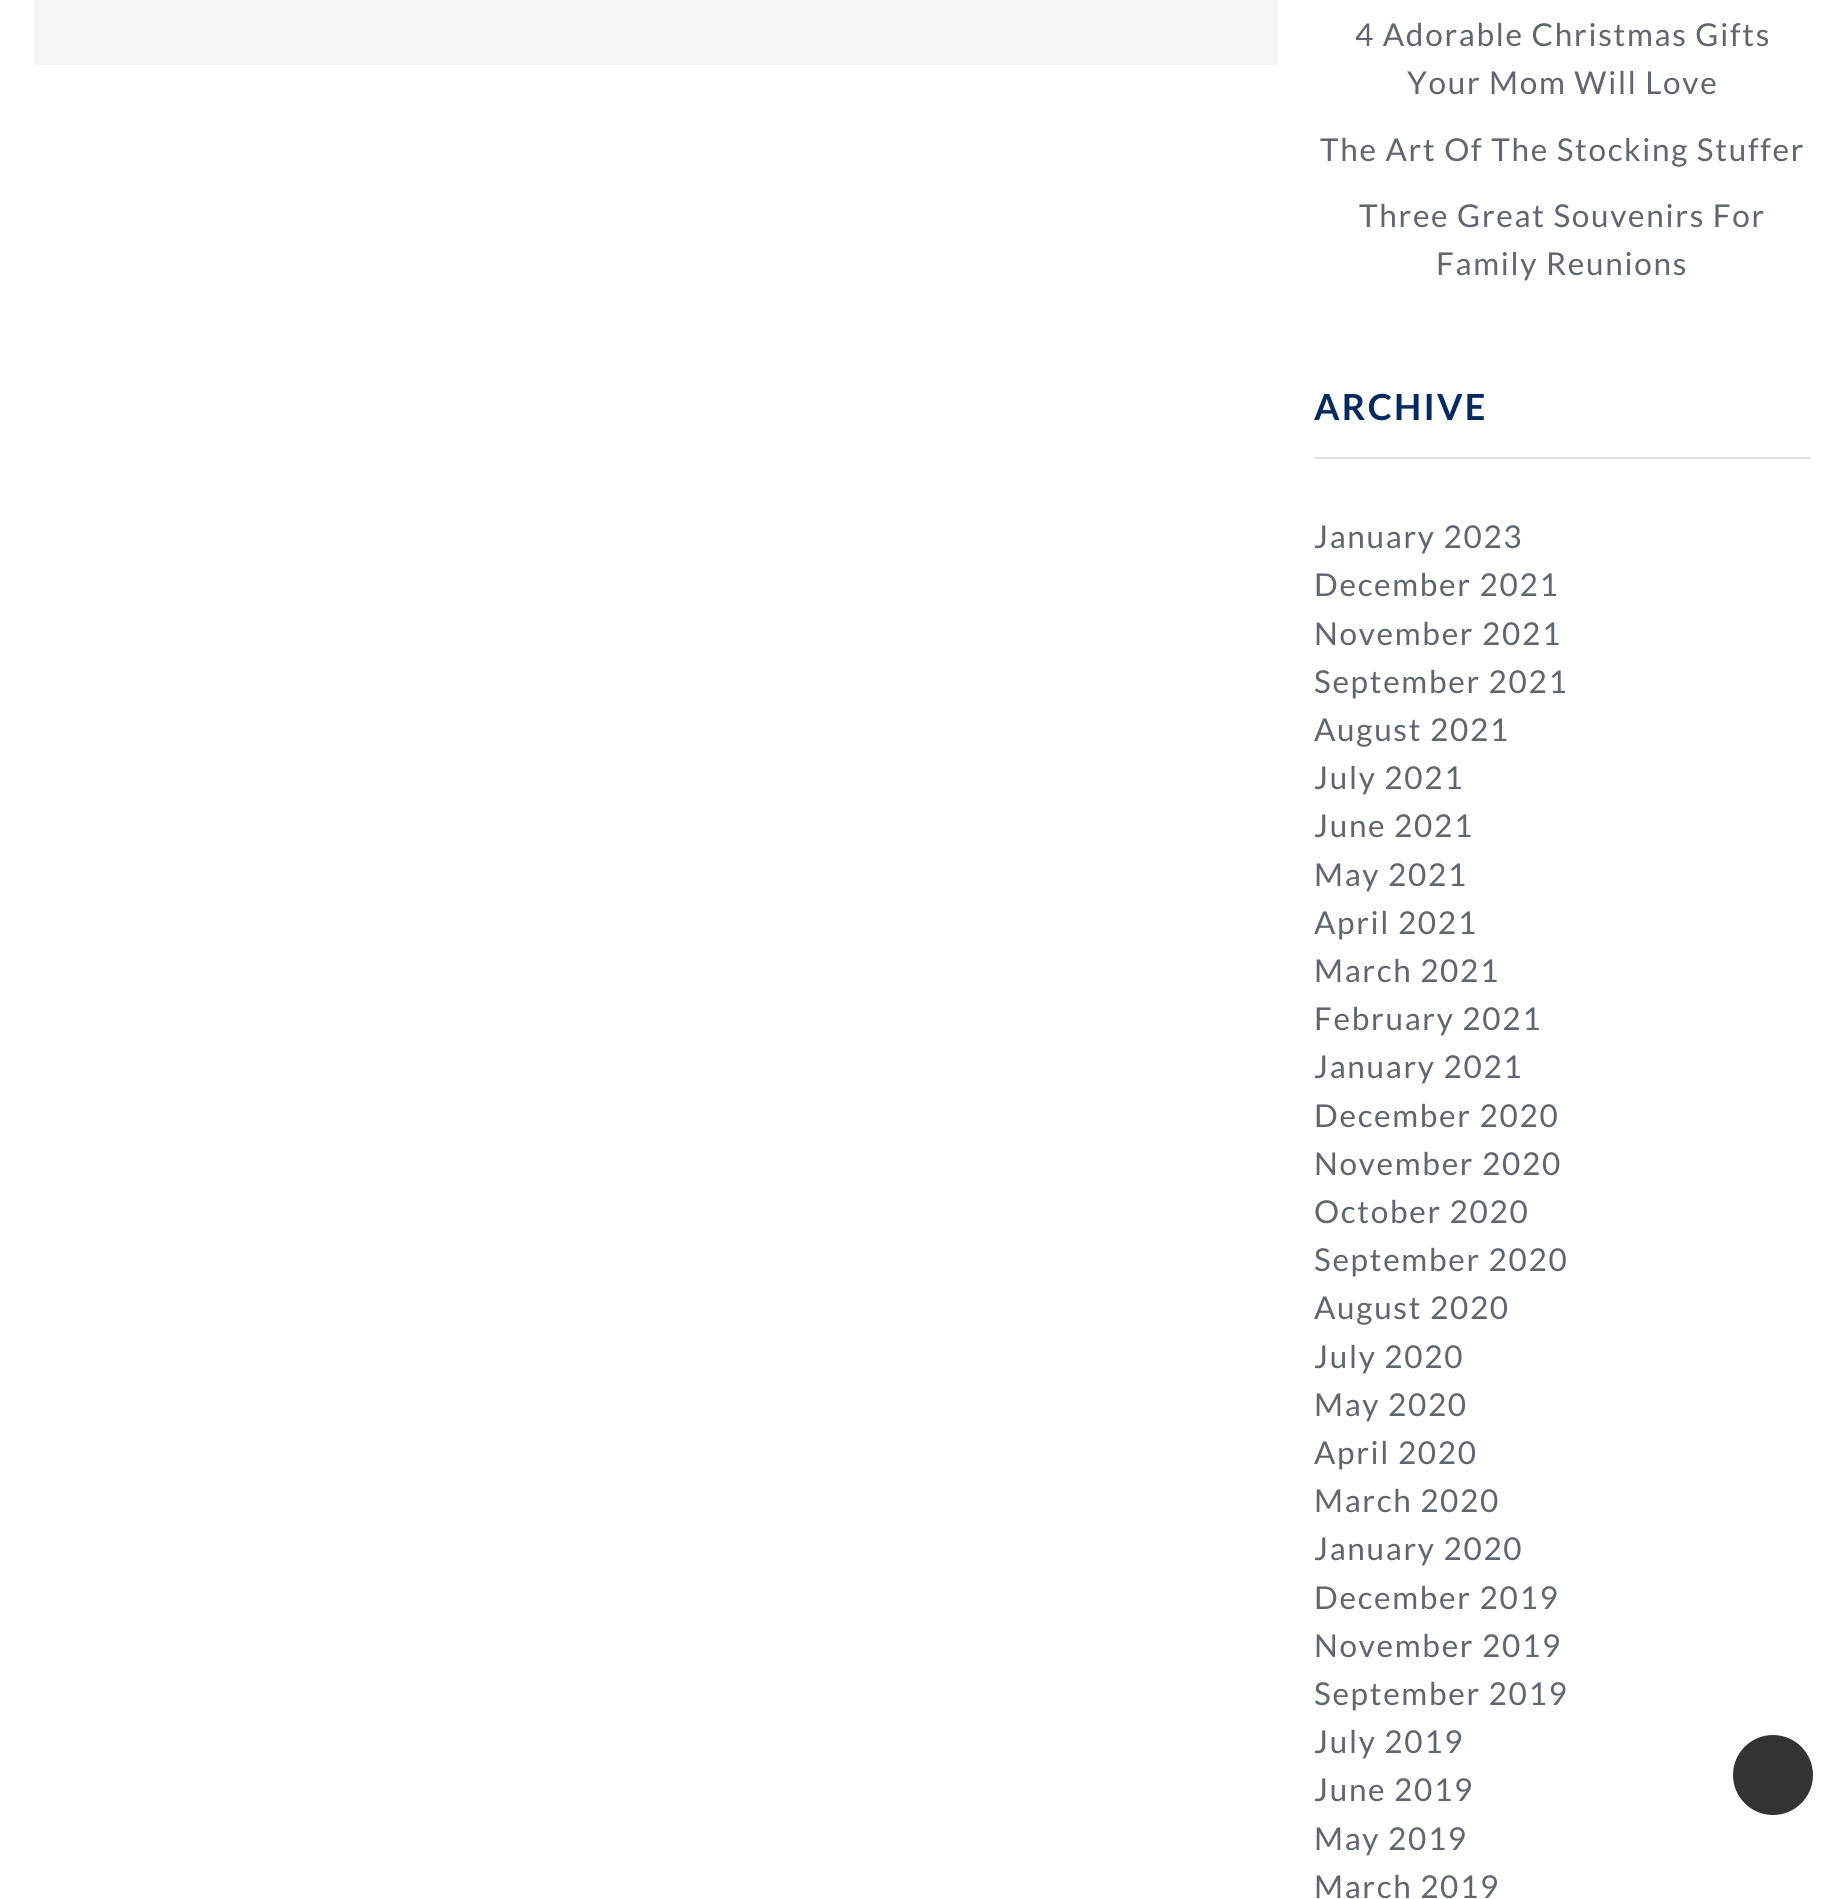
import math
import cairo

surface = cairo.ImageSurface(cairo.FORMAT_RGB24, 1845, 1899)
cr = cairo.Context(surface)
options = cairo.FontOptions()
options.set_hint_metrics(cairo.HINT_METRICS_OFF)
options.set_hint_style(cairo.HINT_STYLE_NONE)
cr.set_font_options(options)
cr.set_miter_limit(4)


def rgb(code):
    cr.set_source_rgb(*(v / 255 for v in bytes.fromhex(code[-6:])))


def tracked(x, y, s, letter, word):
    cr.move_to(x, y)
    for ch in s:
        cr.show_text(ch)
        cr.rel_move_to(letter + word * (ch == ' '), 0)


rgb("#ffffff")
cr.paint()
rgb("#f5f5f5")
cr.rectangle(34, 0, 1244, 65)
cr.fill()
rgb("#e3e3e3")
cr.rectangle(1314, 457, 497, 2)
cr.fill()
rgb("#333333")
cr.arc(1773, 1775, 42.5, 0, 2 * math.pi)
cr.fill_preserve()
rgb("#ffffff")
cr.set_line_width(5)
cr.stroke()
cr.select_font_face("Lato")
cr.set_font_size(31.5)
rgb("#5f666f")
for x, y, s in [
    (1355, 46, "4 Adorable Christmas Gifts"),
    (1407, 94, "Your Mom Will Love"),
    (1320, 161, "The Art Of The Stocking Stuffer"),
    (1359, 227, "Three Great Souvenirs For"),
    (1436, 275, "Family Reunions"),
]:
    tracked(x, y, s, 1.7, 0)
cr.select_font_face("Lato", cairo.FONT_SLANT_NORMAL, cairo.FONT_WEIGHT_BOLD)
cr.set_font_size(36)
rgb("#072a5e")
tracked(1314, 420, "ARCHIVE", 2.25, 0)
cr.select_font_face("Lato")
cr.set_font_size(31.5)
rgb("#5f666f")
for x, y, s in [
    (1314, 548, "January 2023"),
    (1314, 596, "December 2021"),
    (1314, 645, "November 2021"),
    (1314, 693, "September 2021"),
    (1314, 741, "August 2021"),
    (1314, 789, "July 2021"),
    (1314, 837, "June 2021"),
    (1314, 886, "May 2021"),
    (1314, 934, "April 2021"),
    (1314, 982, "March 2021"),
    (1314, 1030, "February 2021"),
    (1314, 1078, "January 2021"),
    (1314, 1127, "December 2020"),
    (1314, 1175, "November 2020"),
    (1314, 1223, "October 2020"),
    (1314, 1271, "September 2020"),
    (1314, 1319, "August 2020"),
    (1314, 1368, "July 2020"),
    (1314, 1416, "May 2020"),
    (1314, 1464, "April 2020"),
    (1314, 1512, "March 2020"),
    (1314, 1560, "January 2020"),
    (1314, 1609, "December 2019"),
    (1314, 1657, "November 2019"),
    (1314, 1705, "September 2019"),
    (1314, 1753, "July 2019"),
    (1314, 1801, "June 2019"),
    (1314, 1850, "May 2019"),
    (1314, 1898, "March 2019"),
]:
    tracked(x, y, s, 1.7, 0)
surface.write_to_png("page.png")
